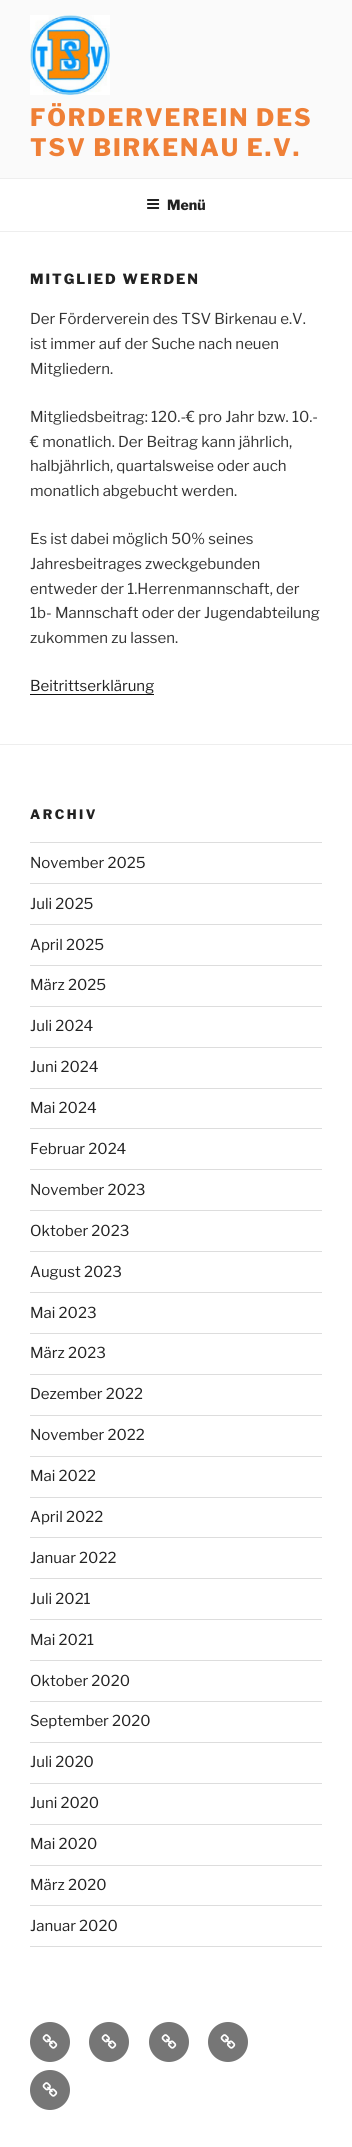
import math
import cairo

surface = cairo.ImageSurface(cairo.FORMAT_RGB24, 352, 2147)
cr = cairo.Context(surface)
options = cairo.FontOptions()
options.set_hint_metrics(cairo.HINT_METRICS_OFF)
options.set_hint_style(cairo.HINT_STYLE_NONE)
cr.set_font_options(options)
cr.set_miter_limit(4)


def rgb(code):
    cr.set_source_rgb(*(v / 255 for v in bytes.fromhex(code[-6:])))


def tracked(x, y, s, letter, word):
    cr.move_to(x, y)
    for ch in s:
        cr.show_text(ch)
        cr.rel_move_to(letter + word * (ch == ' '), 0)


def image(path, x, y, w, h):
    cr.save()
    cr.set_source_surface(cairo.ImageSurface.create_from_png(path), x, y)
    cr.rectangle(x, y, w, h)
    cr.fill()
    cr.restore()


rgb("#ffffff")
cr.paint()
rgb("#fafafa")
cr.rectangle(0, 0, 352, 178)
cr.fill()
image("img/1.png", 30, 15, 80, 80)
rgb("#eeeeee")
cr.rectangle(0, 178, 352, 1)
cr.fill()
cr.rectangle(0, 231, 352, 1)
cr.fill()
image("img/2.png", 147, 199, 13, 10)
for x, y, w, h, color in [
    (30, 694, 124, 1, "#0f0f0f"),
    (0, 744, 352, 1, "#eeeeee"),
    (30, 842, 292, 1, "#dddddd"),
    (30, 883, 292, 1, "#dddddd"),
    (30, 924, 292, 1, "#dddddd"),
    (30, 965, 292, 1, "#dddddd"),
    (30, 1006, 292, 1, "#dddddd"),
    (30, 1047, 292, 1, "#dddddd"),
    (30, 1088, 292, 1, "#dddddd"),
    (30, 1128, 292, 1, "#dddddd"),
    (30, 1169, 292, 1, "#dddddd"),
    (30, 1210, 292, 1, "#dddddd"),
    (30, 1251, 292, 1, "#dddddd"),
    (30, 1292, 292, 1, "#dddddd"),
    (30, 1333, 292, 1, "#dddddd"),
    (30, 1374, 292, 1, "#dddddd"),
    (30, 1415, 292, 1, "#dddddd"),
    (30, 1456, 292, 1, "#dddddd"),
    (30, 1497, 292, 1, "#dddddd"),
    (30, 1537, 292, 1, "#dddddd"),
    (30, 1578, 292, 1, "#dddddd"),
    (30, 1619, 292, 1, "#dddddd"),
    (30, 1660, 292, 1, "#dddddd"),
    (30, 1701, 292, 1, "#dddddd"),
    (30, 1742, 292, 1, "#dddddd"),
    (30, 1783, 292, 1, "#dddddd"),
    (30, 1824, 292, 1, "#dddddd"),
    (30, 1865, 292, 1, "#dddddd"),
    (30, 1905, 292, 1, "#dddddd"),
    (30, 1946, 292, 1, "#dddddd"),
]:
    rgb(color)
    cr.rectangle(x, y, w, h)
    cr.fill()
rgb("#767676")
cr.arc(50, 2042, 20, 0, 2 * math.pi)
cr.fill()
image("img/3.png", 42, 2034, 16, 15)
cr.arc(109, 2042, 20, 0, 2 * math.pi)
cr.fill()
image("img/3.png", 101, 2034, 16, 15)
cr.arc(169, 2042, 20, 0, 2 * math.pi)
cr.fill()
image("img/3.png", 161, 2034, 16, 15)
cr.arc(228, 2042, 20, 0, 2 * math.pi)
cr.fill()
image("img/3.png", 220, 2034, 16, 15)
cr.arc(50, 2090, 20, 0, 2 * math.pi)
cr.fill()
image("img/3.png", 42, 2082, 16, 15)
cr.select_font_face("Libre Franklin ExtraBold")
cr.set_font_size(24)
rgb("#ef8037")
tracked(30, 126, "FÖRDERVEREIN DES", 1.9, 0)
tracked(30, 156, "TSV BIRKENAU E.V.", 1.9, 0)
cr.set_font_size(14)
rgb("#222222")
cr.move_to(167, 210)
cr.show_text("Menü")
tracked(30, 284, "MITGLIED WERDEN", 2, 0)
cr.select_font_face("Libre Franklin")
cr.set_font_size(15)
rgb("#333333")
for x, y, s in [
    (30, 324, "Der Förderverein des TSV Birkenau e.V."),
    (30, 349, "ist immer auf der Suche nach neuen"),
    (30, 374, "Mitgliedern."),
    (30, 422, "Mitgliedsbeitrag: 120.-€ pro Jahr bzw. 10.-"),
    (30, 447, "€ monatlich. Der Beitrag kann jährlich,"),
    (30, 471, "halbjährlich, quartalsweise oder auch"),
    (30, 496, "monatlich abgebucht werden."),
    (30, 544, "Es ist dabei möglich 50% seines"),
    (30, 569, "Jahresbeitrages zweckgebunden"),
    (30, 594, "entweder der 1.Herrenmannschaft, der"),
    (30, 618, "1b- Mannschaft oder der Jugendabteilung"),
    (30, 643, "zukommen zu lassen."),
]:
    cr.move_to(x, y)
    cr.show_text(s)
rgb("#222222")
cr.move_to(30, 691)
cr.show_text("Beitrittserklärung")
cr.select_font_face("Libre Franklin ExtraBold")
cr.set_font_size(13)
tracked(30, 819, "ARCHIV", 2.5, 0)
cr.select_font_face("Libre Franklin")
cr.set_font_size(15)
for x, y, s in [
    (30, 868, "November 2025"),
    (30, 909, "Juli 2025"),
    (30, 950, "April 2025"),
    (30, 990, "März 2025"),
    (30, 1031, "Juli 2024"),
    (30, 1072, "Juni 2024"),
    (30, 1113, "Mai 2024"),
    (30, 1154, "Februar 2024"),
    (30, 1195, "November 2023"),
    (30, 1236, "Oktober 2023"),
    (30, 1277, "August 2023"),
    (30, 1318, "Mai 2023"),
    (30, 1358, "März 2023"),
    (30, 1399, "Dezember 2022"),
    (30, 1440, "November 2022"),
    (30, 1481, "Mai 2022"),
    (30, 1522, "April 2022"),
    (30, 1563, "Januar 2022"),
    (30, 1604, "Juli 2021"),
    (30, 1645, "Mai 2021"),
    (30, 1686, "Oktober 2020"),
    (30, 1726, "September 2020"),
    (30, 1767, "Juli 2020"),
    (30, 1808, "Juni 2020"),
    (30, 1849, "Mai 2020"),
    (30, 1890, "März 2020"),
    (30, 1931, "Januar 2020"),
]:
    cr.move_to(x, y)
    cr.show_text(s)
surface.write_to_png("page.png")
